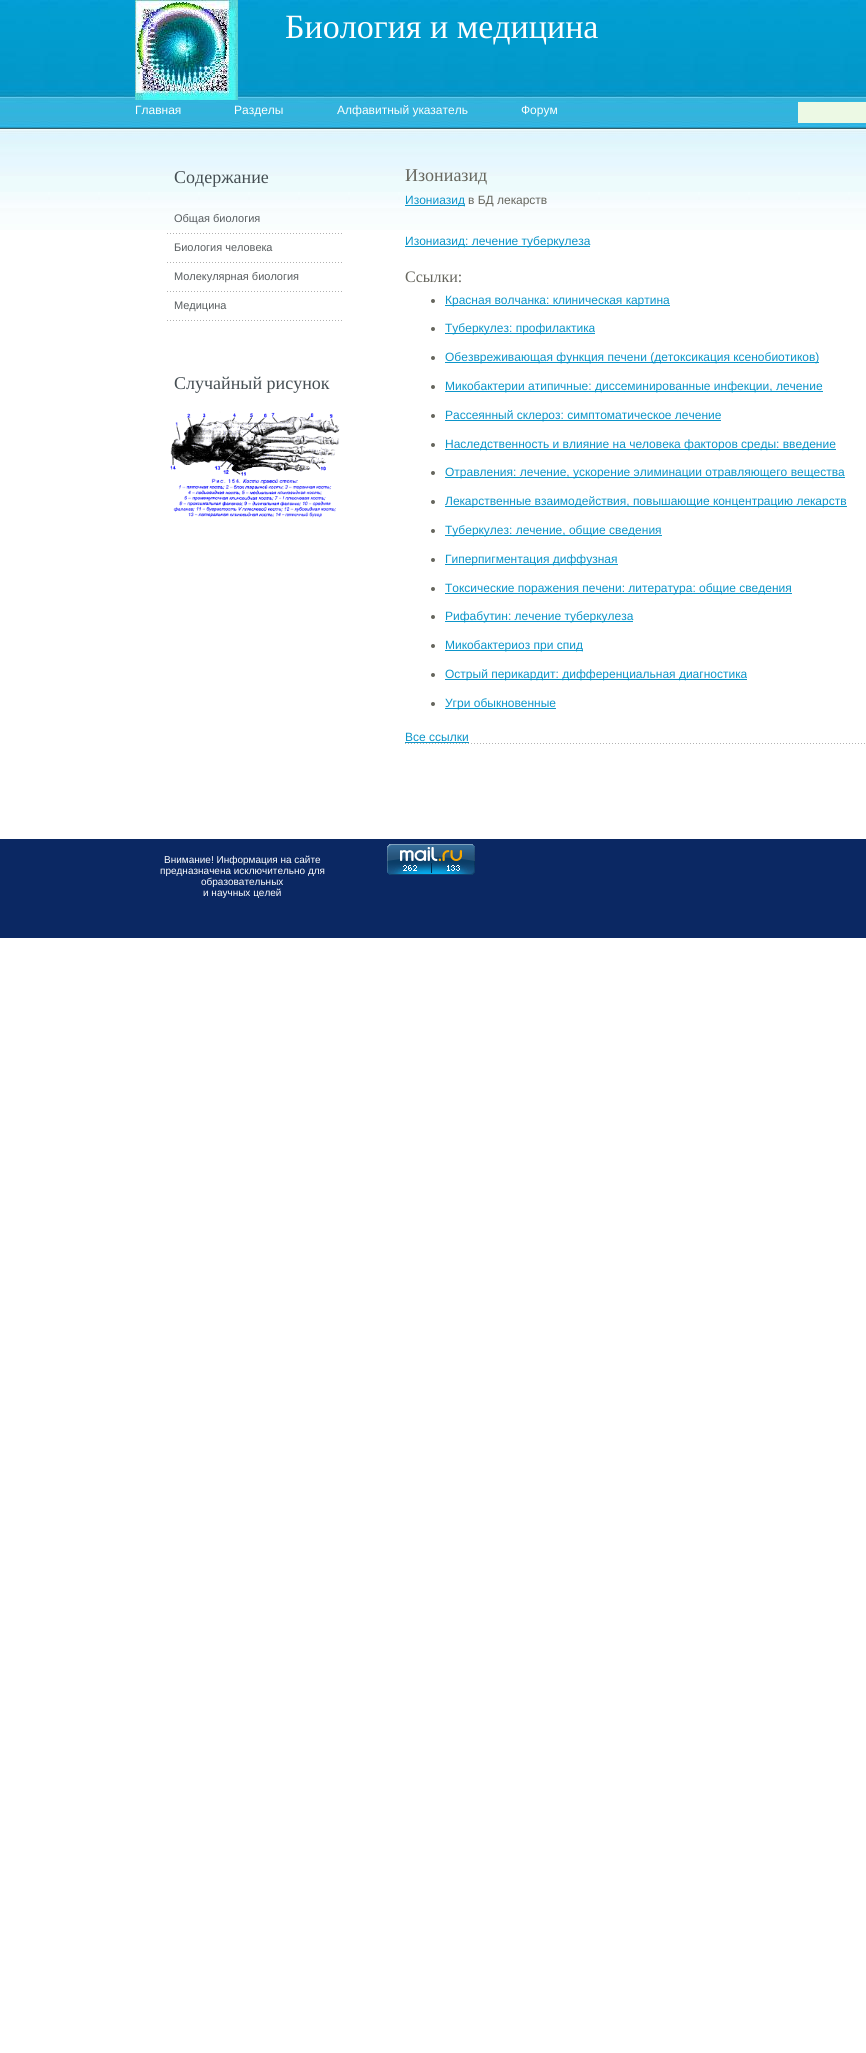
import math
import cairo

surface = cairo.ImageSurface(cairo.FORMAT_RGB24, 866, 2053)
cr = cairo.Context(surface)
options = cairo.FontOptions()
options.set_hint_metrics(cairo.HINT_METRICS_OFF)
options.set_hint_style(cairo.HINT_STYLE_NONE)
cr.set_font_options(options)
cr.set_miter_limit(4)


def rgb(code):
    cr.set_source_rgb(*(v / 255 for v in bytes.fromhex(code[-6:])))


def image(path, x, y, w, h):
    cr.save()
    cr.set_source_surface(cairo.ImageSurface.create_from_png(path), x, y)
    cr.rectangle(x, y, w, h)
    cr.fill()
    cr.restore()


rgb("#ffffff")
cr.paint()
image("img/1.png", 0, 0, 866, 230)
image("img/2.png", 135, 0, 103, 100)
rgb("#ecf9e4")
cr.rectangle(798, 102, 68, 21)
cr.fill()
image("img/3.png", 167, 233, 175, 1)
image("img/3.png", 167, 262, 175, 1)
image("img/3.png", 167, 291, 175, 1)
image("img/3.png", 167, 320, 175, 1)
image("img/4.png", 170, 411, 170, 107)
image("img/5.png", 405, 743, 460, 1)
rgb("#0c95c9")
cr.rectangle(405, 205, 60, 1)
cr.fill()
cr.rectangle(405, 246, 185, 1)
cr.fill()
rgb("#66665e")
cr.arc(433, 301, 2, 0, 2 * math.pi)
cr.fill()
rgb("#0c95c9")
cr.rectangle(445, 305, 225, 1)
cr.fill()
rgb("#66665e")
cr.arc(433, 329, 2, 0, 2 * math.pi)
cr.fill()
rgb("#0c95c9")
cr.rectangle(445, 333, 150, 1)
cr.fill()
rgb("#66665e")
cr.arc(433, 358, 2, 0, 2 * math.pi)
cr.fill()
rgb("#0c95c9")
cr.rectangle(445, 362, 374, 1)
cr.fill()
rgb("#66665e")
cr.arc(433, 387, 2, 0, 2 * math.pi)
cr.fill()
rgb("#0c95c9")
cr.rectangle(445, 391, 378, 1)
cr.fill()
rgb("#66665e")
cr.arc(433, 416, 2, 0, 2 * math.pi)
cr.fill()
rgb("#0c95c9")
cr.rectangle(445, 420, 276, 1)
cr.fill()
rgb("#66665e")
cr.arc(433, 445, 2, 0, 2 * math.pi)
cr.fill()
rgb("#0c95c9")
cr.rectangle(445, 449, 391, 1)
cr.fill()
rgb("#66665e")
cr.arc(433, 473, 2, 0, 2 * math.pi)
cr.fill()
rgb("#0c95c9")
cr.rectangle(445, 477, 400, 1)
cr.fill()
rgb("#66665e")
cr.arc(433, 502, 2, 0, 2 * math.pi)
cr.fill()
rgb("#0c95c9")
cr.rectangle(445, 506, 402, 1)
cr.fill()
rgb("#66665e")
cr.arc(433, 531, 2, 0, 2 * math.pi)
cr.fill()
rgb("#0c95c9")
cr.rectangle(445, 535, 217, 1)
cr.fill()
rgb("#66665e")
cr.arc(433, 560, 2, 0, 2 * math.pi)
cr.fill()
rgb("#0c95c9")
cr.rectangle(445, 564, 173, 1)
cr.fill()
rgb("#66665e")
cr.arc(433, 589, 2, 0, 2 * math.pi)
cr.fill()
rgb("#0c95c9")
cr.rectangle(445, 593, 347, 1)
cr.fill()
rgb("#66665e")
cr.arc(433, 617, 2, 0, 2 * math.pi)
cr.fill()
rgb("#0c95c9")
cr.rectangle(445, 621, 188, 1)
cr.fill()
rgb("#66665e")
cr.arc(433, 646, 2, 0, 2 * math.pi)
cr.fill()
rgb("#0c95c9")
cr.rectangle(445, 650, 138, 1)
cr.fill()
rgb("#66665e")
cr.arc(433, 675, 2, 0, 2 * math.pi)
cr.fill()
rgb("#0c95c9")
cr.rectangle(445, 679, 302, 1)
cr.fill()
rgb("#66665e")
cr.arc(433, 704, 2, 0, 2 * math.pi)
cr.fill()
for x, y, w, h, color in [
    (445, 708, 111, 1, "#0c95c9"),
    (405, 742, 64, 1, "#0c95c9"),
    (0, 839, 866, 99, "#0b2863"),
]:
    rgb(color)
    cr.rectangle(x, y, w, h)
    cr.fill()
image("img/6.png", 387, 844, 88, 31)
cr.select_font_face("Liberation Serif")
cr.set_font_size(34)
rgb("#ffffff")
cr.move_to(285, 38)
cr.show_text("Биология и медицина")
cr.select_font_face("Liberation Sans")
cr.set_font_size(12)
for x, y, s in [
    (135, 114, "Главная"),
    (234, 114, "Разделы"),
    (337, 114, "Алфавитный указатель"),
    (521, 114, "Форум"),
]:
    cr.move_to(x, y)
    cr.show_text(s)
cr.select_font_face("Liberation Serif")
cr.set_font_size(18)
rgb("#464f54")
cr.move_to(174, 183)
cr.show_text("Содержание")
cr.select_font_face("Liberation Sans")
cr.set_font_size(11)
rgb("#585d60")
for x, y, s in [
    (174, 222, "Общая биология"),
    (174, 251, "Биология человека"),
    (174, 280, "Молекулярная биология"),
    (174, 309, "Медицина"),
]:
    cr.move_to(x, y)
    cr.show_text(s)
cr.select_font_face("Liberation Serif")
cr.set_font_size(18)
rgb("#464f54")
cr.move_to(174, 389)
cr.show_text("Случайный рисунок")
rgb("#66665e")
cr.move_to(405, 181)
cr.show_text("Изониазид")
cr.select_font_face("Liberation Sans")
cr.set_font_size(12)
rgb("#0c95c9")
cr.move_to(405, 204)
cr.show_text("Изониазид")
rgb("#66665e")
cr.move_to(468, 204)
cr.show_text("в БД лекарств")
rgb("#0c95c9")
cr.move_to(405, 245)
cr.show_text("Изониазид: лечение туберкулеза")
cr.select_font_face("Liberation Serif")
cr.set_font_size(16)
rgb("#66665e")
cr.move_to(405, 282)
cr.show_text("Ссылки:")
cr.select_font_face("Liberation Sans")
cr.set_font_size(12)
rgb("#0c95c9")
for x, y, s in [
    (445, 304, "Красная волчанка: клиническая картина"),
    (445, 332, "Туберкулез: профилактика"),
    (445, 361, "Обезвреживающая функция печени (детоксикация ксенобиотиков)"),
    (445, 390, "Микобактерии атипичные: диссеминированные инфекции, лечение"),
    (445, 419, "Рассеянный склероз: симптоматическое лечение"),
    (445, 448, "Наследственность и влияние на человека факторов среды: введение"),
    (445, 476, "Отравления: лечение, ускорение элиминации отравляющего вещества"),
    (445, 505, "Лекарственные взаимодействия, повышающие концентрацию лекарств"),
    (445, 534, "Туберкулез: лечение, общие сведения"),
    (445, 563, "Гиперпигментация диффузная"),
    (445, 592, "Токсические поражения печени: литература: общие сведения"),
    (445, 620, "Рифабутин: лечение туберкулеза"),
    (445, 649, "Микобактериоз при спид"),
    (445, 678, "Острый перикардит: дифференциальная диагностика"),
    (445, 707, "Угри обыкновенные"),
    (405, 741, "Все ссылки"),
]:
    cr.move_to(x, y)
    cr.show_text(s)
cr.set_font_size(10)
rgb("#ffffff")
for x, y, s in [
    (164, 863, "Внимание! Информация на сайте"),
    (160, 874, "предназначена исключительно для"),
    (201, 885, "образовательных"),
    (203, 896, "и научных целей"),
]:
    cr.move_to(x, y)
    cr.show_text(s)
surface.write_to_png("page.png")
